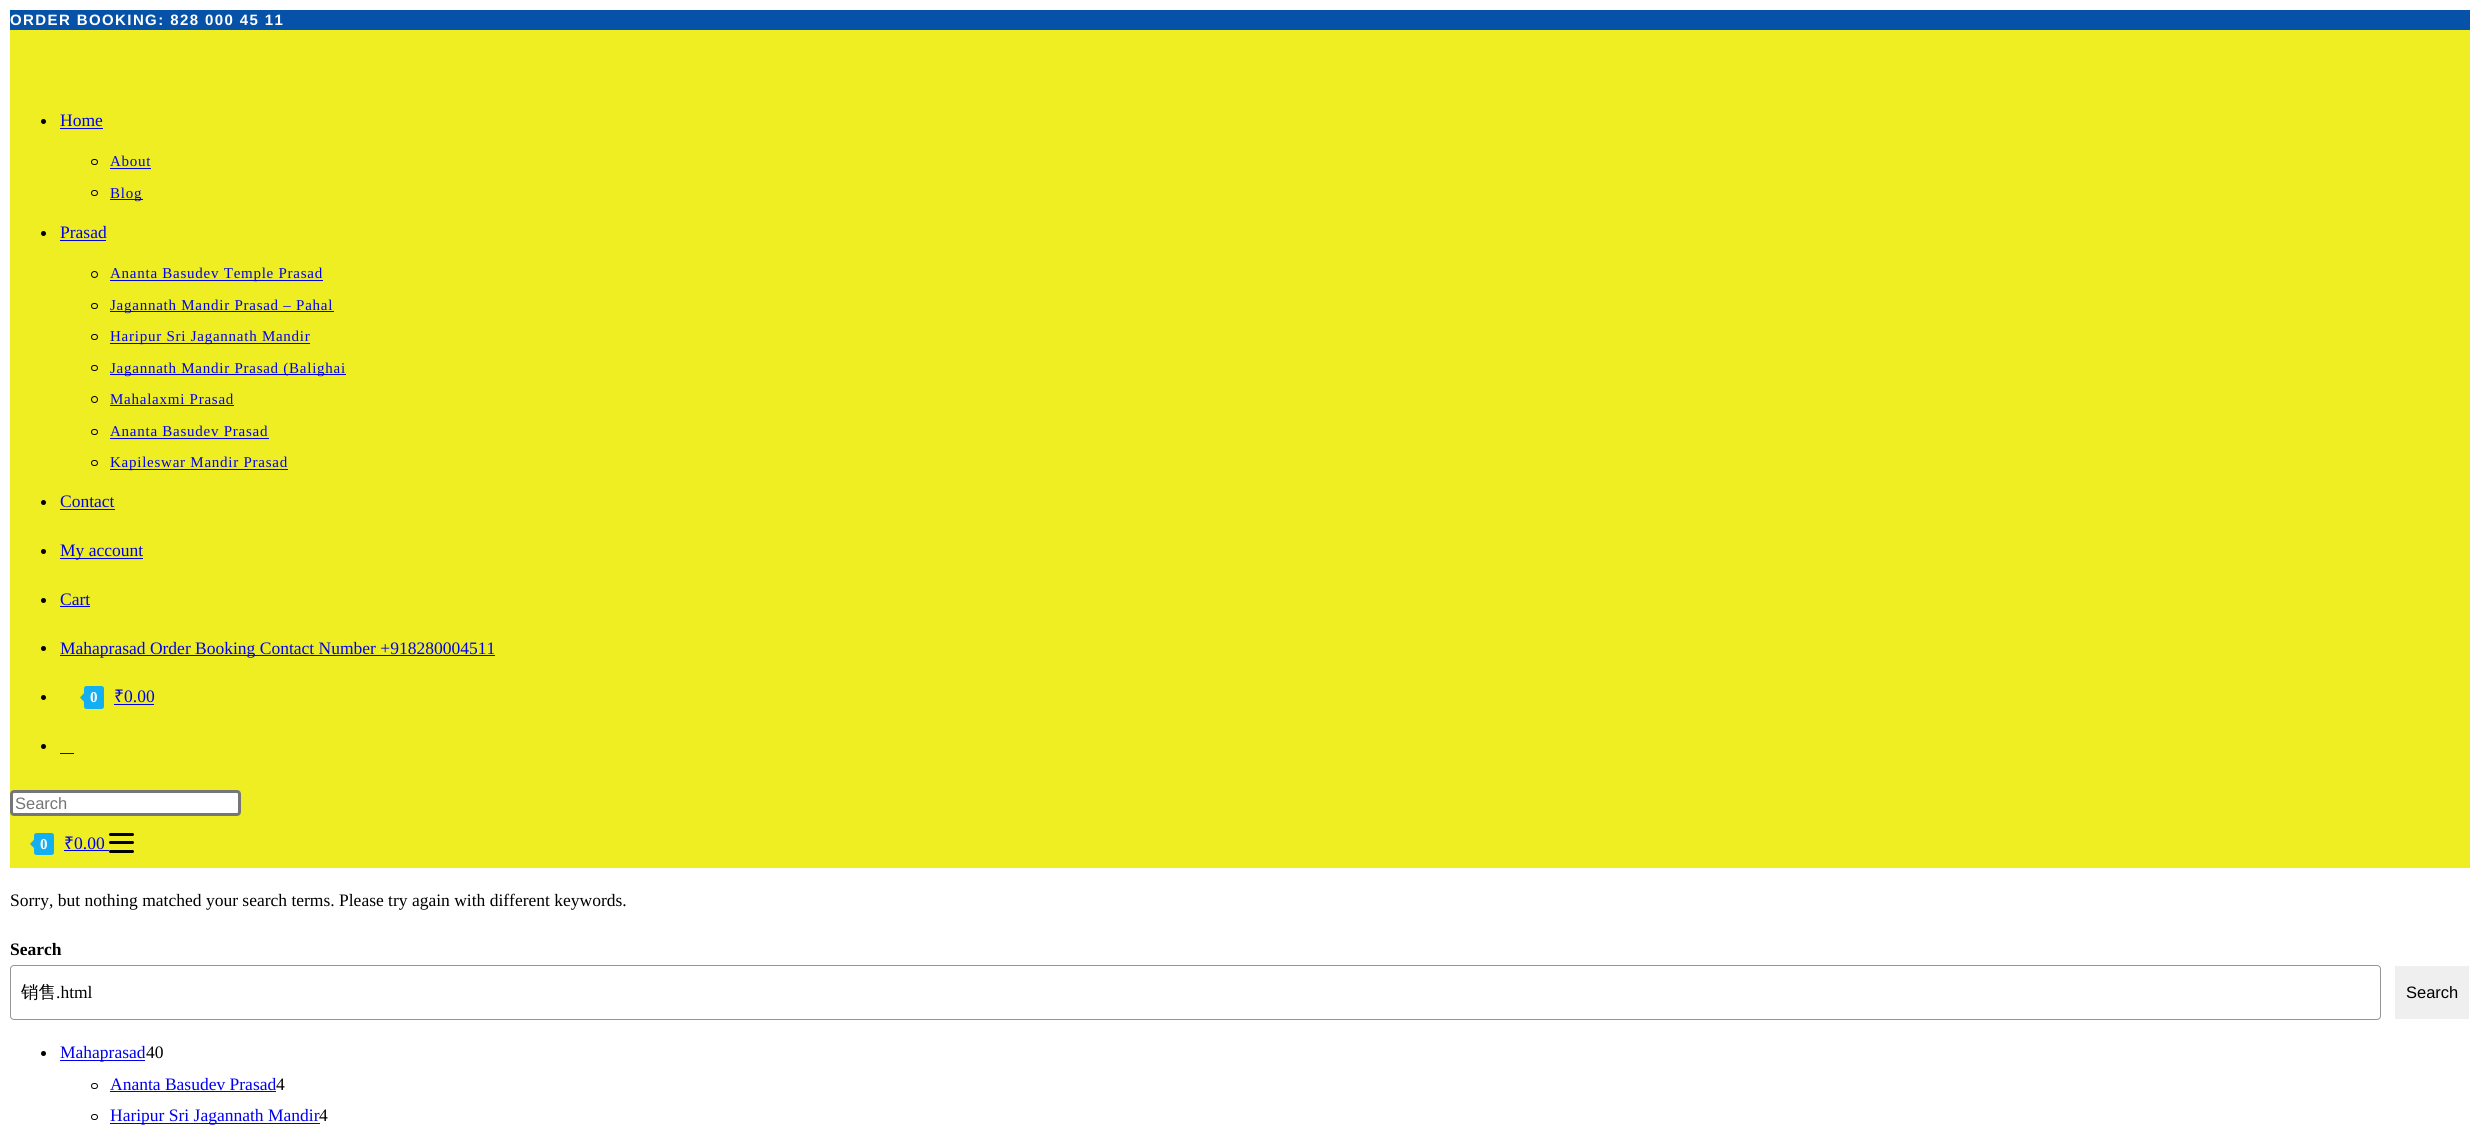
import math
import cairo

surface = cairo.ImageSurface(cairo.FORMAT_RGB24, 2480, 1125)
cr = cairo.Context(surface)
options = cairo.FontOptions()
options.set_hint_metrics(cairo.HINT_METRICS_OFF)
options.set_hint_style(cairo.HINT_STYLE_NONE)
cr.set_font_options(options)
cr.set_miter_limit(4)


def rgb(code):
    cr.set_source_rgb(*(v / 255 for v in bytes.fromhex(code[-6:])))


def tracked(x, y, s, letter, word):
    cr.move_to(x, y)
    for ch in s:
        cr.show_text(ch)
        cr.rel_move_to(letter + word * (ch == ' '), 0)


def rrect(x, y, w, h, r):
    cr.new_sub_path()
    for i, (u, v) in enumerate([(x + w - r, y + h - r), (x + r, y + h - r), (x + r, y + r), (x + w - r, y + r)]):
        cr.arc(u, v, r, i * math.pi / 2, (i + 1) * math.pi / 2)
    cr.close_path()


rgb("#ffffff")
cr.paint()
rgb("#0652a8")
cr.rectangle(10, 10, 2460, 20)
cr.fill()
rgb("#eeee22")
cr.rectangle(10, 30, 2460, 838)
cr.fill()
rgb("#000000")
cr.arc(43.5, 121.5, 2.5, 0, 2 * math.pi)
cr.fill()
rgb("#0000ee")
cr.rectangle(60, 128, 43, 1)
cr.fill()
rrect(91.5, 159.5, 6, 5, 2.5)
rgb("#000000")
cr.set_line_width(1)
cr.stroke()
rgb("#0000ee")
cr.rectangle(110, 168, 41, 1)
cr.fill()
rrect(91.5, 190.5, 6, 5, 2.5)
rgb("#000000")
cr.stroke()
rgb("#0000ee")
cr.rectangle(110, 199, 33, 1)
cr.fill()
rgb("#000000")
cr.arc(43.5, 233.5, 2.5, 0, 2 * math.pi)
cr.fill()
rgb("#0000ee")
cr.rectangle(60, 240, 46, 1)
cr.fill()
cr.arc(94.5, 274.5, 3, 0, 2 * math.pi)
rgb("#000000")
cr.stroke()
rgb("#0000ee")
cr.rectangle(110, 280, 213, 1)
cr.fill()
rrect(91.5, 303.5, 6, 5, 2.5)
rgb("#000000")
cr.stroke()
rgb("#0000ee")
cr.rectangle(110, 311, 224, 1)
cr.fill()
rrect(91.5, 334.5, 6, 5, 2.5)
rgb("#000000")
cr.stroke()
rgb("#0000ee")
cr.rectangle(110, 343, 200, 1)
cr.fill()
rrect(91.5, 365.5, 6, 5, 2.5)
rgb("#000000")
cr.stroke()
rgb("#0000ee")
cr.rectangle(110, 374, 236, 1)
cr.fill()
cr.arc(94.5, 399.5, 3, 0, 2 * math.pi)
rgb("#000000")
cr.stroke()
rgb("#0000ee")
cr.rectangle(110, 405, 124, 1)
cr.fill()
rrect(91.5, 429.5, 6, 5, 2.5)
rgb("#000000")
cr.stroke()
rgb("#0000ee")
cr.rectangle(110, 438, 159, 1)
cr.fill()
rrect(91.5, 460.5, 6, 5, 2.5)
rgb("#000000")
cr.stroke()
rgb("#0000ee")
cr.rectangle(110, 469, 178, 1)
cr.fill()
rgb("#000000")
cr.arc(43.5, 502.5, 2.5, 0, 2 * math.pi)
cr.fill()
rgb("#0000ee")
cr.rectangle(60, 509, 55, 1)
cr.fill()
rgb("#000000")
cr.arc(43.5, 551.5, 2.5, 0, 2 * math.pi)
cr.fill()
rgb("#0000ee")
cr.rectangle(60, 558, 83, 1)
cr.fill()
rgb("#000000")
cr.arc(43.5, 600.5, 2.5, 0, 2 * math.pi)
cr.fill()
rgb("#0000ee")
cr.rectangle(60, 606, 30, 1)
cr.fill()
rgb("#000000")
cr.arc(43.5, 648.5, 2.5, 0, 2 * math.pi)
cr.fill()
rgb("#0000ee")
cr.rectangle(60, 655, 435, 1)
cr.fill()
rgb("#000000")
cr.arc(43.5, 697.5, 2.5, 0, 2 * math.pi)
cr.fill()
rgb("#13aff0")
rrect(84, 686, 20, 23, 2.5)
cr.fill()
cr.new_path()
cr.move_to(86, 691)
cr.line_to(86, 704)
cr.line_to(80, 697.5)
cr.close_path()
cr.fill()
rgb("#0000ee")
cr.rectangle(114, 704, 40, 1)
cr.fill()
rgb("#000000")
cr.arc(43.5, 746.5, 2.5, 0, 2 * math.pi)
cr.fill()
rgb("#0000ee")
cr.rectangle(60, 753, 14, 1)
cr.fill()
rgb("#ffffff")
rrect(11.5, 791.5, 228, 23, 2.5)
cr.fill_preserve()
rgb("#767676")
cr.set_line_width(3)
cr.stroke()
rgb("#13aff0")
rrect(34, 833, 20, 22, 2.5)
cr.fill()
cr.new_path()
cr.move_to(36, 837.5)
cr.line_to(36, 850)
cr.line_to(30, 844)
cr.close_path()
cr.fill()
rgb("#0000ee")
cr.rectangle(64, 850, 45, 1)
cr.fill()
rgb("#000000")
rrect(109, 841, 25, 3, 1.5)
cr.fill()
rrect(109, 833, 25, 3, 1.5)
cr.fill()
rrect(109, 850, 25, 3, 1.5)
cr.fill()
rrect(10.5, 965.5, 2370, 54, 3.5)
rgb("#949494")
cr.set_line_width(1)
cr.stroke()
rgb("#efefef")
cr.rectangle(2395, 966, 74, 53)
cr.fill()
rgb("#000000")
cr.arc(43.5, 1053.5, 2.5, 0, 2 * math.pi)
cr.fill()
rgb("#0000ee")
cr.rectangle(60, 1060, 85, 1)
cr.fill()
rrect(91.5, 1083.5, 6, 5, 2.5)
rgb("#000000")
cr.stroke()
rgb("#0000ee")
cr.rectangle(110, 1091, 166, 1)
cr.fill()
rrect(91.5, 1114.5, 6, 5, 2.5)
rgb("#000000")
cr.stroke()
rgb("#0000ee")
cr.rectangle(110, 1123, 210, 1)
cr.fill()
cr.select_font_face("Liberation Sans", cairo.FONT_SLANT_NORMAL, cairo.FONT_WEIGHT_BOLD)
cr.set_font_size(15)
rgb("#ffffff")
tracked(10, 25, "ORDER BOOKING: 828 000 45 11", 1.4, 0)
cr.select_font_face("Liberation Serif")
cr.set_font_size(17.5)
rgb("#0000ee")
cr.move_to(60, 126)
cr.show_text("Home")
cr.set_font_size(15)
tracked(110, 166, "About", 0.75, 0)
tracked(110, 198, "Blog", 0.75, 0)
cr.set_font_size(17.5)
cr.move_to(60, 238)
cr.show_text("Prasad")
cr.set_font_size(15)
for x, y, s in [
    (110, 278, "Ananta Basudev Temple Prasad"),
    (110, 310, "Jagannath Mandir Prasad – Pahal"),
    (110, 341, "Haripur Sri Jagannath Mandir"),
    (110, 373, "Jagannath Mandir Prasad (Balighai"),
    (110, 404, "Mahalaxmi Prasad"),
    (110, 436, "Ananta Basudev Prasad"),
    (110, 467, "Kapileswar Mandir Prasad"),
]:
    tracked(x, y, s, 0.75, 0)
cr.set_font_size(17.5)
for x, y, s in [
    (60, 507, "Contact"),
    (60, 556, "My account"),
    (60, 605, "Cart"),
    (60, 654, "Mahaprasad Order Booking Contact Number +918280004511"),
]:
    cr.move_to(x, y)
    cr.show_text(s)
cr.select_font_face("Liberation Serif", cairo.FONT_SLANT_NORMAL, cairo.FONT_WEIGHT_BOLD)
cr.set_font_size(15)
rgb("#ffffff")
cr.move_to(90, 702)
cr.show_text("0")
cr.select_font_face("Noto Sans")
cr.set_font_size(17.5)
rgb("#0000ee")
cr.move_to(114, 702)
cr.show_text("₹")
cr.select_font_face("Liberation Serif")
cr.move_to(124, 702)
cr.show_text("0.00")
cr.select_font_face("Liberation Sans")
cr.set_font_size(16.5)
rgb("#757575")
cr.move_to(15, 809)
cr.show_text("Search")
cr.select_font_face("Liberation Serif", cairo.FONT_SLANT_NORMAL, cairo.FONT_WEIGHT_BOLD)
cr.set_font_size(15)
rgb("#ffffff")
cr.move_to(40, 849)
cr.show_text("0")
cr.select_font_face("Noto Sans")
cr.set_font_size(17.5)
rgb("#0000ee")
cr.move_to(64, 849)
cr.show_text("₹")
cr.select_font_face("Liberation Serif")
cr.move_to(74, 849)
cr.show_text("0.00")
rgb("#000000")
cr.move_to(10, 906)
cr.show_text("Sorry, but nothing matched your search terms. Please try again with different keywords.")
cr.select_font_face("Liberation Serif", cairo.FONT_SLANT_NORMAL, cairo.FONT_WEIGHT_BOLD)
cr.move_to(10, 955)
cr.show_text("Search")
cr.select_font_face("WenQuanYi Zen Hei Medium")
cr.move_to(21, 998)
cr.show_text("销售")
cr.select_font_face("Liberation Serif")
cr.move_to(56, 998)
cr.show_text(".html")
cr.select_font_face("Liberation Sans")
cr.set_font_size(16.5)
cr.move_to(2406, 998)
cr.show_text("Search")
cr.select_font_face("Liberation Serif")
cr.set_font_size(17.5)
rgb("#0000ee")
cr.move_to(60, 1058)
cr.show_text("Mahaprasad")
rgb("#000000")
cr.move_to(146, 1058)
cr.show_text("40")
rgb("#0000ee")
cr.move_to(110, 1090)
cr.show_text("Ananta Basudev Prasad")
rgb("#000000")
cr.move_to(276, 1090)
cr.show_text("4")
rgb("#0000ee")
cr.move_to(110, 1121)
cr.show_text("Haripur Sri Jagannath Mandir")
rgb("#000000")
cr.move_to(319, 1121)
cr.show_text("4")
surface.write_to_png("page.png")
